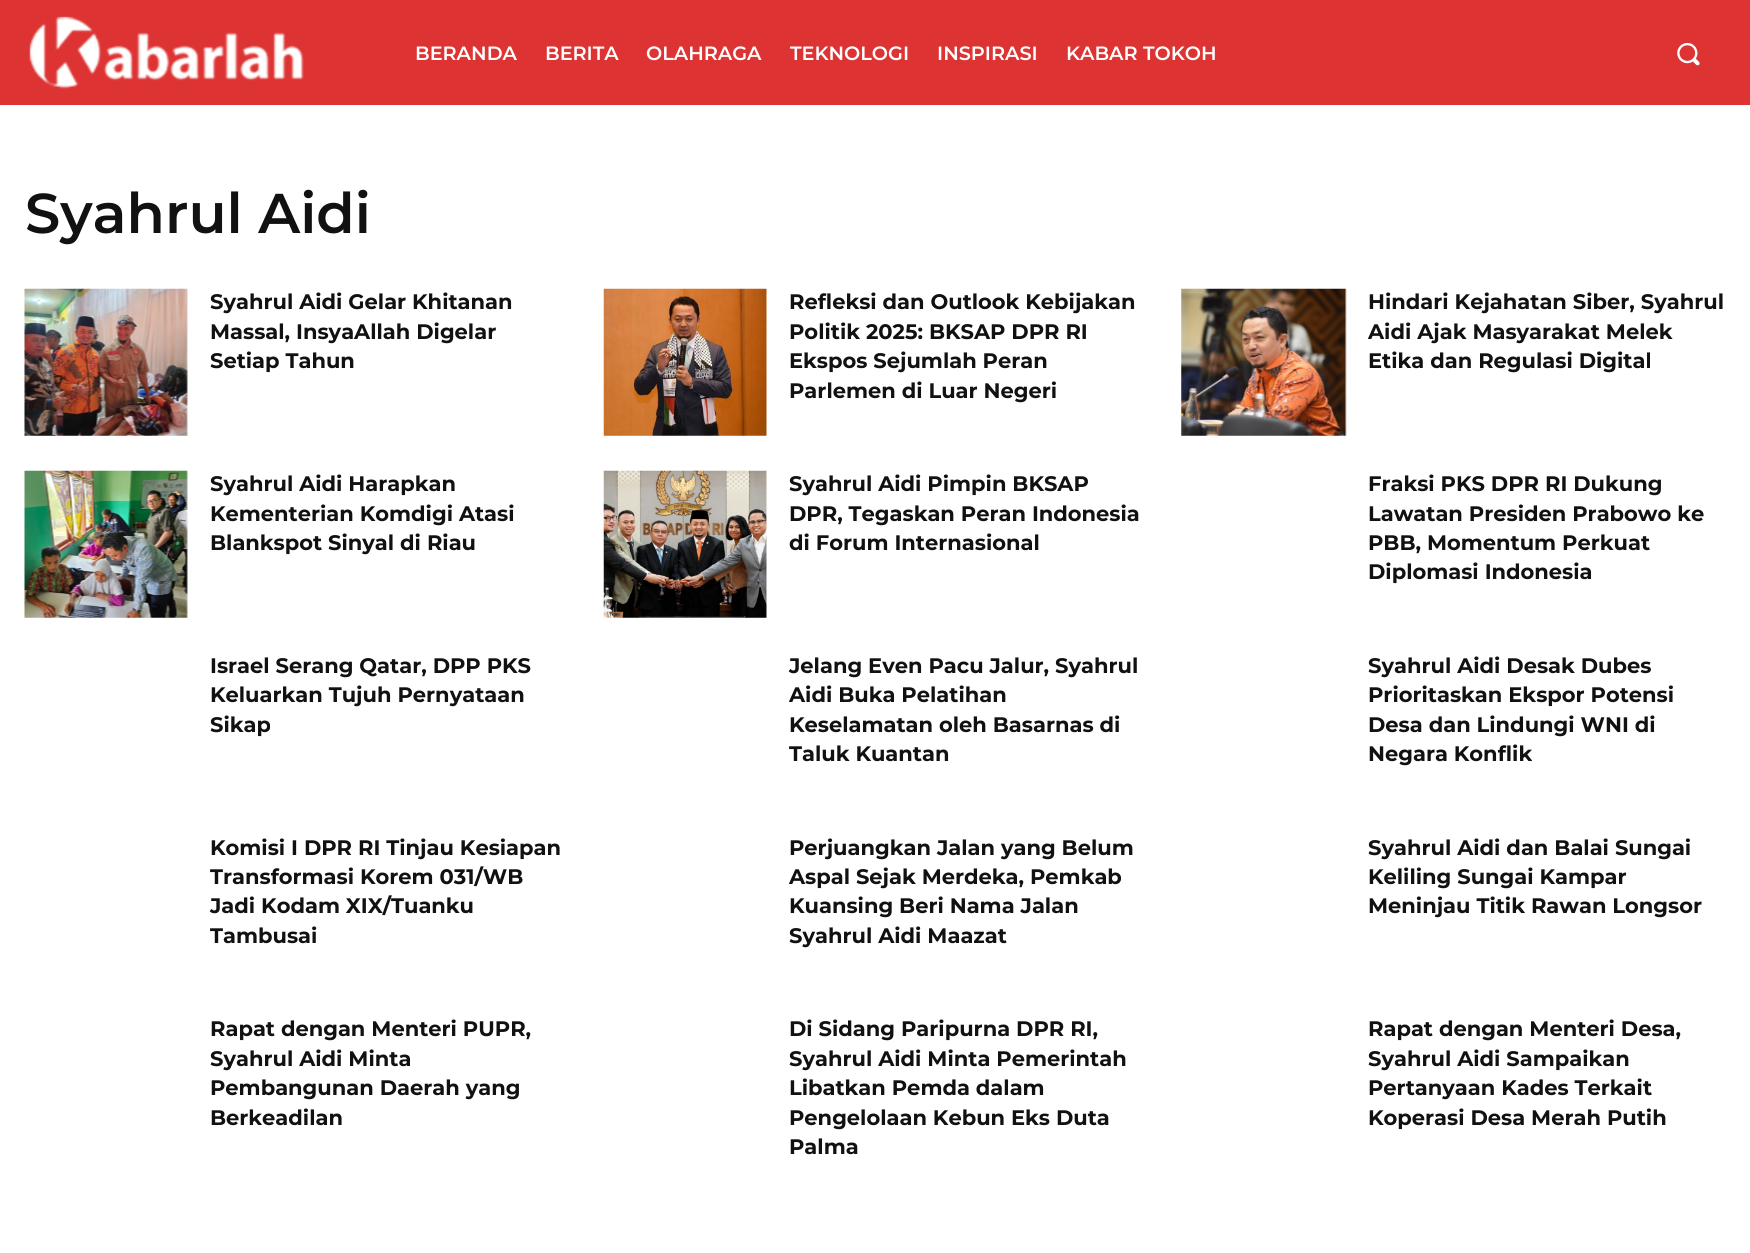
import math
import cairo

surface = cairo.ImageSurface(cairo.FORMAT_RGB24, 1750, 1253)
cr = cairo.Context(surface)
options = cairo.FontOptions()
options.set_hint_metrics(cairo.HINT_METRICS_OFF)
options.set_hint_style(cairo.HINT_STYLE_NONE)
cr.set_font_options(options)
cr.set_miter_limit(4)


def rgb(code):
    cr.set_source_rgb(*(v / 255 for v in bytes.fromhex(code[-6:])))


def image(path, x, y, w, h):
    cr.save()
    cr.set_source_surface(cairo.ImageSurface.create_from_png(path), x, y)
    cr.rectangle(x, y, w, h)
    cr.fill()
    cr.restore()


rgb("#ffffff")
cr.paint()
rgb("#dd3333")
cr.rectangle(0, 0, 1750, 105)
cr.fill()
image("img/1.png", 29, 16, 275, 73)
image("img/2.png", 1677, 42, 23, 24)
image("img/3.png", 24, 288, 164, 148)
image("img/4.png", 603, 288, 164, 148)
image("img/5.png", 1181, 288, 166, 148)
image("img/6.png", 24, 470, 164, 148)
image("img/7.png", 603, 470, 164, 148)
cr.select_font_face("Montserrat SemiBold")
cr.set_font_size(19.25)
rgb("#ffffff")
for x, y, s in [
    (415, 60, "BERANDA"),
    (545, 60, "BERITA"),
    (646, 60, "OLAHRAGA"),
    (790, 60, "TEKNOLOGI"),
    (937, 60, "INSPIRASI"),
    (1066, 60, "KABAR TOKOH"),
]:
    cr.move_to(x, y)
    cr.show_text(s)
cr.set_font_size(56)
rgb("#111111")
cr.move_to(25, 233)
cr.show_text("Syahrul Aidi")
cr.select_font_face("Montserrat", cairo.FONT_SLANT_NORMAL, cairo.FONT_WEIGHT_BOLD)
cr.set_font_size(21)
for x, y, s in [
    (210, 309, "Syahrul Aidi Gelar Khitanan"),
    (210, 339, "Massal, InsyaAllah Digelar"),
    (210, 368, "Setiap Tahun"),
    (789, 309, "Refleksi dan Outlook Kebijakan"),
    (789, 339, "Politik 2025: BKSAP DPR RI"),
    (789, 368, "Ekspos Sejumlah Peran"),
    (789, 398, "Parlemen di Luar Negeri"),
    (1368, 309, "Hindari Kejahatan Siber, Syahrul"),
    (1368, 339, "Aidi Ajak Masyarakat Melek"),
    (1368, 368, "Etika dan Regulasi Digital"),
    (210, 491, "Syahrul Aidi Harapkan"),
    (210, 521, "Kementerian Komdigi Atasi"),
    (210, 550, "Blankspot Sinyal di Riau"),
    (789, 491, "Syahrul Aidi Pimpin BKSAP"),
    (789, 521, "DPR, Tegaskan Peran Indonesia"),
    (789, 550, "di Forum Internasional"),
    (1368, 491, "Fraksi PKS DPR RI Dukung"),
    (1368, 521, "Lawatan Presiden Prabowo ke"),
    (1368, 550, "PBB, Momentum Perkuat"),
    (1368, 579, "Diplomasi Indonesia"),
    (210, 673, "Israel Serang Qatar, DPP PKS"),
    (210, 702, "Keluarkan Tujuh Pernyataan"),
    (210, 732, "Sikap"),
    (789, 673, "Jelang Even Pacu Jalur, Syahrul"),
    (789, 702, "Aidi Buka Pelatihan"),
    (789, 732, "Keselamatan oleh Basarnas di"),
    (789, 761, "Taluk Kuantan"),
    (1368, 673, "Syahrul Aidi Desak Dubes"),
    (1368, 702, "Prioritaskan Ekspor Potensi"),
    (1368, 732, "Desa dan Lindungi WNI di"),
    (1368, 761, "Negara Konflik"),
    (210, 855, "Komisi I DPR RI Tinjau Kesiapan"),
    (210, 884, "Transformasi Korem 031/WB"),
    (210, 913, "Jadi Kodam XIX/Tuanku"),
    (210, 943, "Tambusai"),
    (789, 855, "Perjuangkan Jalan yang Belum"),
    (789, 884, "Aspal Sejak Merdeka, Pemkab"),
    (789, 913, "Kuansing Beri Nama Jalan"),
    (789, 943, "Syahrul Aidi Maazat"),
    (1368, 855, "Syahrul Aidi dan Balai Sungai"),
    (1368, 884, "Keliling Sungai Kampar"),
    (1368, 913, "Meninjau Titik Rawan Longsor"),
    (210, 1036, "Rapat dengan Menteri PUPR,"),
    (210, 1066, "Syahrul Aidi Minta"),
    (210, 1095, "Pembangunan Daerah yang"),
    (210, 1125, "Berkeadilan"),
    (789, 1036, "Di Sidang Paripurna DPR RI,"),
    (789, 1066, "Syahrul Aidi Minta Pemerintah"),
    (789, 1095, "Libatkan Pemda dalam"),
    (789, 1125, "Pengelolaan Kebun Eks Duta"),
    (789, 1154, "Palma"),
    (1368, 1036, "Rapat dengan Menteri Desa,"),
    (1368, 1066, "Syahrul Aidi Sampaikan"),
    (1368, 1095, "Pertanyaan Kades Terkait"),
    (1368, 1125, "Koperasi Desa Merah Putih"),
]:
    cr.move_to(x, y)
    cr.show_text(s)
surface.write_to_png("page.png")
